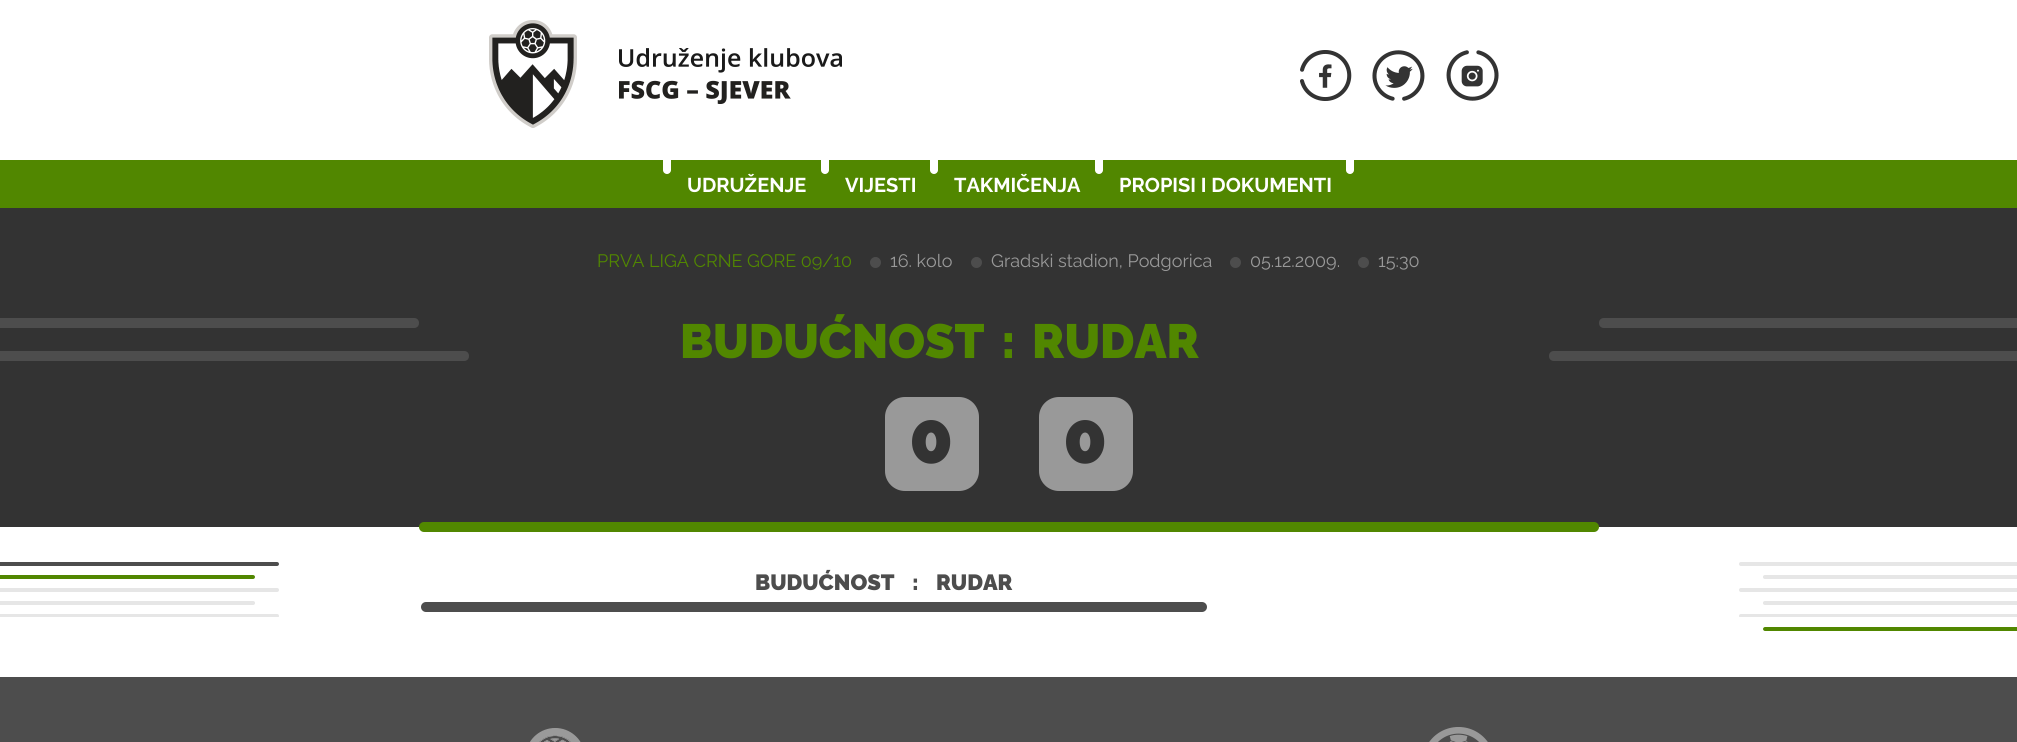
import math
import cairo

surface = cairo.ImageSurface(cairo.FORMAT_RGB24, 2017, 742)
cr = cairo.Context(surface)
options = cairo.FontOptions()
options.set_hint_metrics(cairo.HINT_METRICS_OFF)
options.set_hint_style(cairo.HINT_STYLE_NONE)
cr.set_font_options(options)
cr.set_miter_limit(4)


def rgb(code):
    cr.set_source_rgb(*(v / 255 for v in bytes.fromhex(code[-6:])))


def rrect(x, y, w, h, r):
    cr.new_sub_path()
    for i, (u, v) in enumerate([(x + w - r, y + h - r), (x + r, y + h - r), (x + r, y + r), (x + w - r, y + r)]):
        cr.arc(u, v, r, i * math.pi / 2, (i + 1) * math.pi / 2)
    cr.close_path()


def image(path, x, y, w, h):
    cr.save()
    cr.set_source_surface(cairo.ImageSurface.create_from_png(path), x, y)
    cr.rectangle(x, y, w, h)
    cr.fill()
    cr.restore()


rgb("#ffffff")
cr.paint()
image("img/1.png", 489, 20, 88, 108)
image("img/2.png", 619, 48, 223, 56)
image("img/3.png", 1300, 50, 52, 51)
image("img/4.png", 1372, 50, 53, 51)
image("img/5.png", 1446, 50, 53, 51)
rgb("#518700")
cr.rectangle(0, 160, 2017, 48)
cr.fill()
rgb("#ffffff")
rrect(663, 154, 8, 20, 4)
cr.fill()
rrect(821, 154, 8, 20, 4)
cr.fill()
rrect(930, 154, 8, 20, 4)
cr.fill()
rrect(1095, 154, 8, 20, 4)
cr.fill()
rrect(1346, 154, 8, 20, 4)
cr.fill()
rgb("#333333")
cr.rectangle(0, 208, 2017, 319)
cr.fill()
rgb("#4d4d4d")
cr.arc(875.5, 262.5, 5.5, 0, 2 * math.pi)
cr.fill()
cr.arc(976.5, 262.5, 5.5, 0, 2 * math.pi)
cr.fill()
cr.arc(1235.5, 262.5, 5.5, 0, 2 * math.pi)
cr.fill()
cr.arc(1363.5, 262.5, 5.5, 0, 2 * math.pi)
cr.fill()
cr.new_path()
cr.move_to(0, 318)
cr.line_to(414, 318)
cr.curve_to(417, 318, 419, 320, 419, 323)
cr.curve_to(419, 326, 417, 328, 414, 328)
cr.line_to(0, 328)
cr.close_path()
cr.fill()
rgb("#999999")
rrect(885, 397, 94, 94, 20)
cr.fill()
rrect(1039, 397, 94, 94, 20)
cr.fill()
rgb("#4d4d4d")
cr.new_path()
cr.move_to(1604, 318)
cr.line_to(2017, 318)
cr.line_to(2017, 328)
cr.line_to(1604, 328)
cr.curve_to(1601, 328, 1599, 326, 1599, 323)
cr.curve_to(1599, 320, 1601, 318, 1604, 318)
cr.close_path()
cr.fill()
cr.new_path()
cr.move_to(0, 351)
cr.line_to(464, 351)
cr.curve_to(467, 351, 469, 353, 469, 356)
cr.curve_to(469, 359, 467, 361, 464, 361)
cr.line_to(0, 361)
cr.close_path()
cr.fill()
cr.new_path()
cr.move_to(1554, 351)
cr.line_to(2017, 351)
cr.line_to(2017, 361)
cr.line_to(1554, 361)
cr.curve_to(1551, 361, 1549, 359, 1549, 356)
cr.curve_to(1549, 353, 1551, 351, 1554, 351)
cr.close_path()
cr.fill()
rgb("#518700")
rrect(419, 522, 1180, 10, 5)
cr.fill()
image("img/6.png", 0, 562, 279, 55)
rgb("#4d4d4d")
cr.new_path()
cr.move_to(0, 562)
cr.line_to(277, 562)
cr.curve_to(278, 562, 279, 563, 279, 564)
cr.curve_to(279, 565, 278, 566, 277, 566)
cr.line_to(0, 566)
cr.close_path()
cr.fill()
rgb("#518700")
cr.new_path()
cr.move_to(0, 575)
cr.line_to(253, 575)
cr.curve_to(254, 575, 255, 576, 255, 577)
cr.curve_to(255, 578, 254, 579, 253, 579)
cr.line_to(0, 579)
cr.close_path()
cr.fill()
rgb("#4d4d4d")
rrect(421, 602, 786, 10, 5)
cr.fill()
image("img/7.png", 1739, 562, 278, 55)
rgb("#518700")
cr.new_path()
cr.move_to(1765, 627)
cr.line_to(2017, 627)
cr.line_to(2017, 631)
cr.line_to(1765, 631)
cr.curve_to(1764, 631, 1763, 630, 1763, 629)
cr.curve_to(1763, 628, 1764, 627, 1765, 627)
cr.close_path()
cr.fill()
rgb("#4d4d4d")
cr.rectangle(0, 677, 2017, 65)
cr.fill()
image("img/8.png", 530, 728, 51, 14)
image("img/9.png", 1429, 727, 59, 15)
cr.select_font_face("Raleway", cairo.FONT_SLANT_NORMAL, cairo.FONT_WEIGHT_BOLD)
cr.set_font_size(20)
rgb("#ffffff")
for x, y, s in [
    (687, 192, "UDRUŽENJE"),
    (845, 192, "VIJESTI"),
    (954, 192, "TAKMIČENJA"),
    (1119, 192, "PROPISI I DOKUMENTI"),
]:
    cr.move_to(x, y)
    cr.show_text(s)
cr.select_font_face("Raleway")
cr.set_font_size(18)
rgb("#518700")
cr.move_to(597, 267)
cr.show_text("PRVA LIGA CRNE GORE 09/10")
rgb("#999999")
for x, y, s in [
    (890, 267, "16. kolo"),
    (991, 267, "Gradski stadion, Podgorica"),
    (1250, 267, "05.12.2009."),
    (1378, 267, "15:30"),
]:
    cr.move_to(x, y)
    cr.show_text(s)
cr.select_font_face("Raleway Black")
cr.set_font_size(48)
rgb("#518700")
for x, y, s in [
    (680, 358, "BUDUĆNOST"),
    (1001, 358, ":"),
    (1032, 358, "RUDAR"),
]:
    cr.move_to(x, y)
    cr.show_text(s)
cr.set_font_size(72)
rgb("#333333")
cr.move_to(909, 463)
cr.show_text("0")
cr.move_to(1063, 463)
cr.show_text("0")
cr.set_font_size(22)
rgb("#4d4d4d")
for x, y, s in [
    (755, 590, "BUDUĆNOST"),
    (912, 590, ":"),
    (936, 590, "RUDAR"),
]:
    cr.move_to(x, y)
    cr.show_text(s)
surface.write_to_png("page.png")
